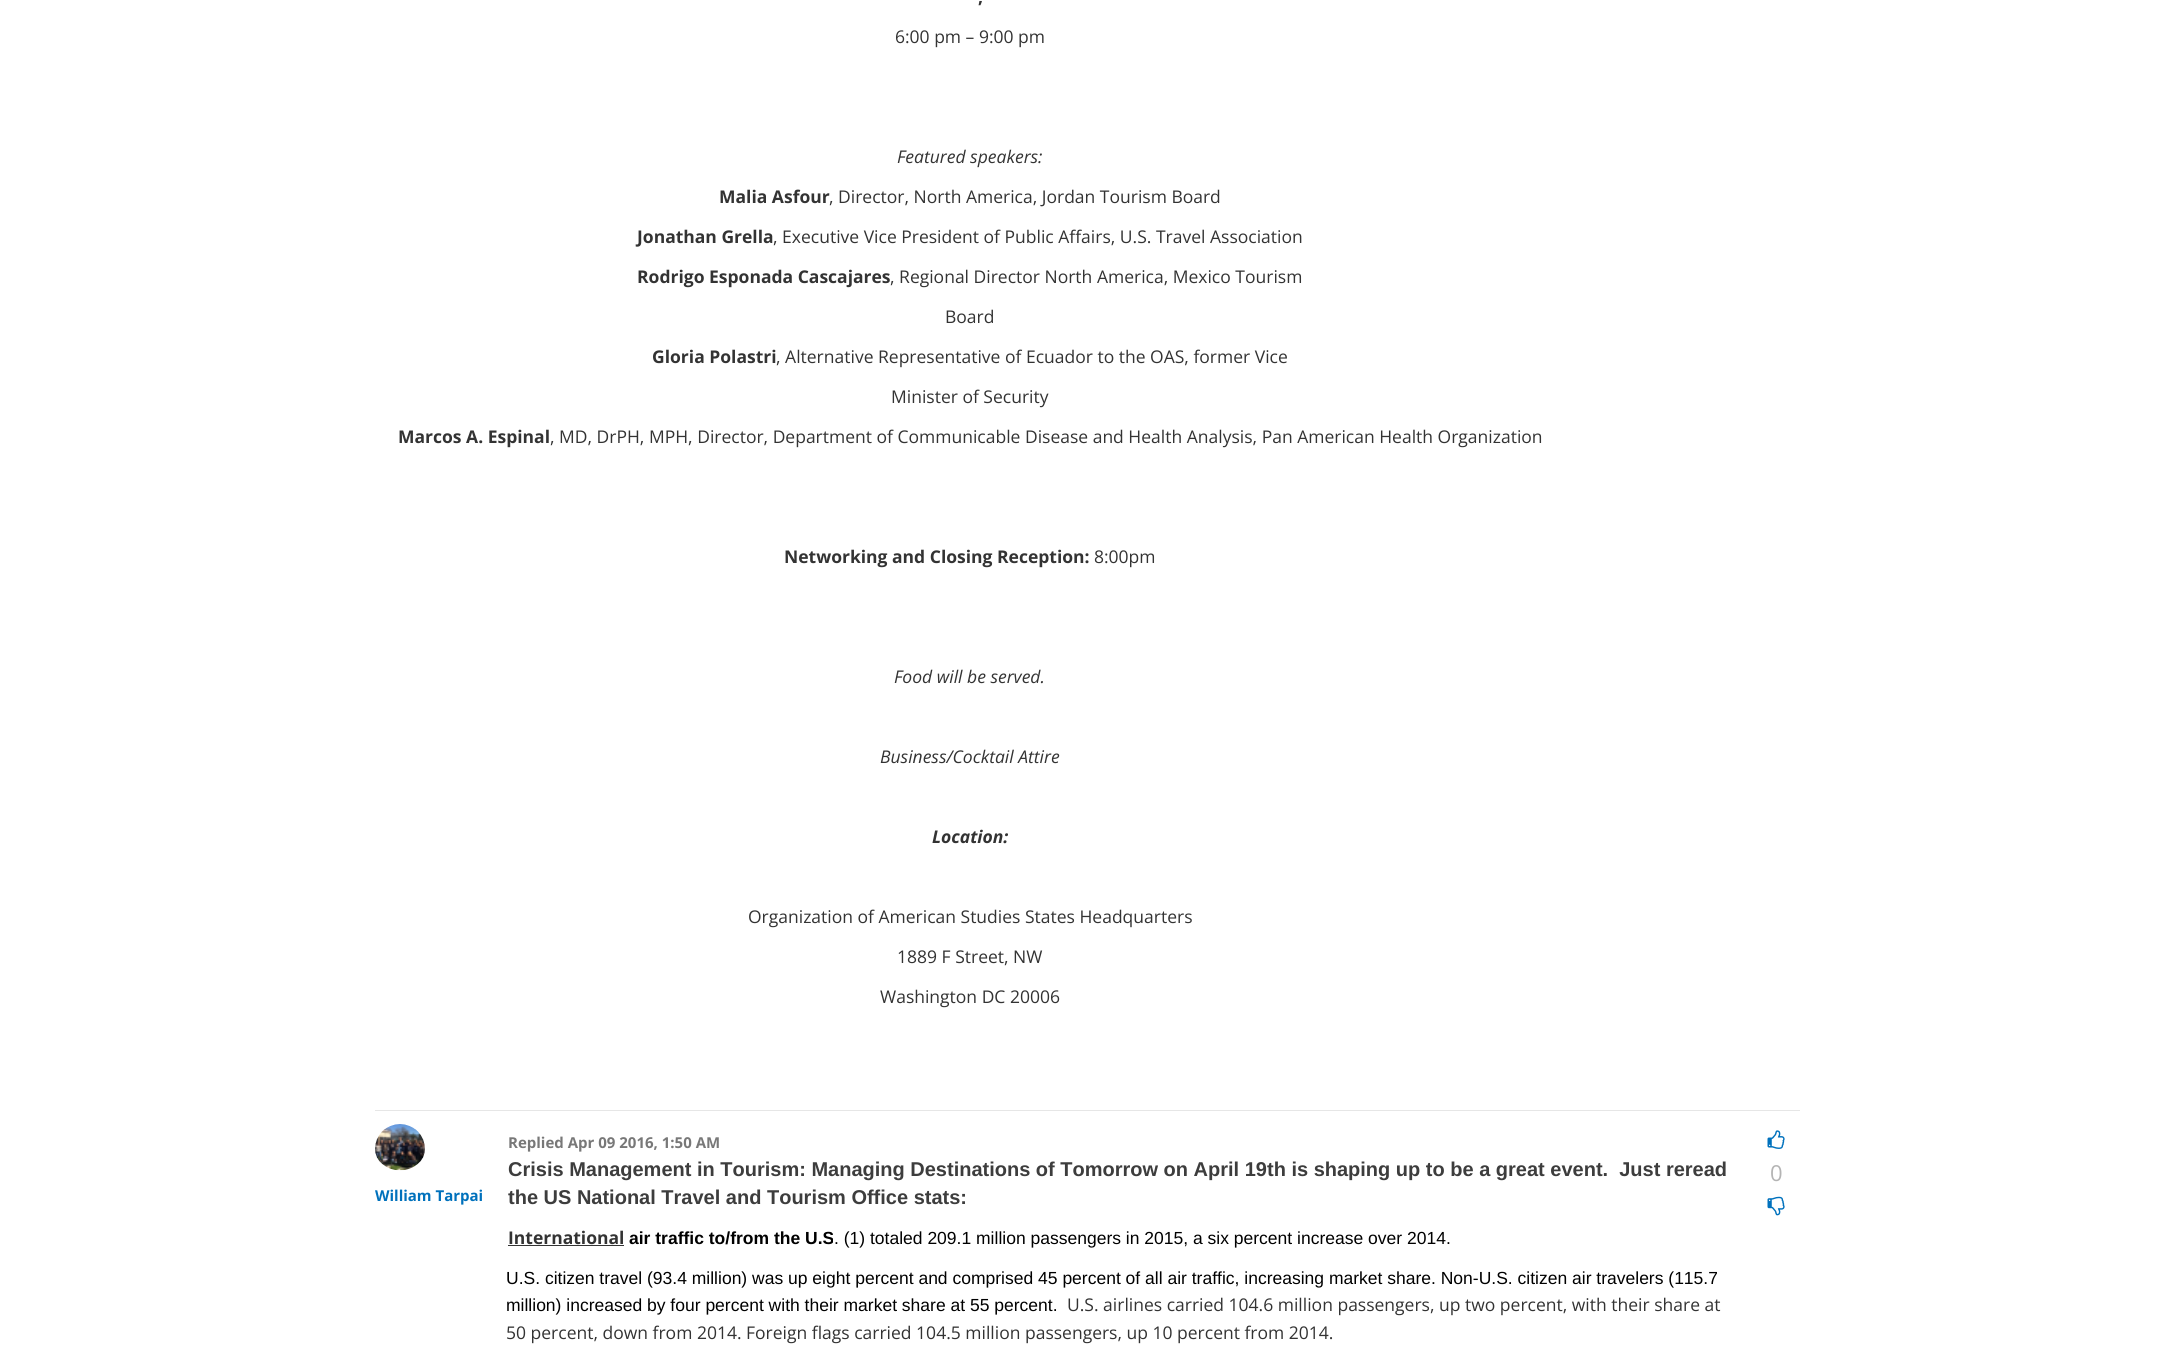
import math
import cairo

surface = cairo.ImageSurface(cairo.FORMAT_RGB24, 2175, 1363)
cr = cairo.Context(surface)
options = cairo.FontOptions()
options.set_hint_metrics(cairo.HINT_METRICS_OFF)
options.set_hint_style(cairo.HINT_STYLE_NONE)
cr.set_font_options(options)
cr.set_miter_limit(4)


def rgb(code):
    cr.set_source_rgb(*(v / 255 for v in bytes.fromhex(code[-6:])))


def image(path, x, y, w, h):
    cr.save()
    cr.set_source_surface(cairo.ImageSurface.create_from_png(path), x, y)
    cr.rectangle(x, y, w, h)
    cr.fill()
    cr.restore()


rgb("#ffffff")
cr.paint()
rgb("#e6e6e6")
cr.rectangle(375, 1110, 1425, 1)
cr.fill()
image("img/1.png", 375, 1124, 50, 47)
rgb("#333333")
cr.rectangle(508, 1245, 116, 1)
cr.fill()
image("img/2.png", 1767, 1130, 18, 19)
image("img/3.png", 1767, 1196, 18, 20)
cr.select_font_face("Open Sans", cairo.FONT_SLANT_NORMAL, cairo.FONT_WEIGHT_BOLD)
cr.set_font_size(17.5)
cr.move_to(978, 3)
cr.show_text(",")
cr.select_font_face("Open Sans")
cr.move_to(895, 43)
cr.show_text("6:00 pm – 9:00 pm")
cr.select_font_face("Open Sans", cairo.FONT_SLANT_ITALIC)
cr.move_to(897, 163)
cr.show_text("Featured speakers:")
cr.select_font_face("Open Sans", cairo.FONT_SLANT_NORMAL, cairo.FONT_WEIGHT_BOLD)
cr.move_to(719, 203)
cr.show_text("Malia Asfour")
cr.select_font_face("Open Sans")
cr.move_to(829, 203)
cr.show_text(", Director, North America, Jordan Tourism Board")
cr.select_font_face("Open Sans", cairo.FONT_SLANT_NORMAL, cairo.FONT_WEIGHT_BOLD)
cr.move_to(637, 243)
cr.show_text("Jonathan Grella")
cr.select_font_face("Open Sans")
cr.move_to(773, 243)
cr.show_text(", Executive Vice President of Public Affairs, U.S. Travel Association")
cr.select_font_face("Open Sans", cairo.FONT_SLANT_NORMAL, cairo.FONT_WEIGHT_BOLD)
cr.move_to(637, 283)
cr.show_text("Rodrigo Esponada Cascajares")
cr.select_font_face("Open Sans")
cr.move_to(890, 283)
cr.show_text(", Regional Director North America, Mexico Tourism")
cr.move_to(945, 323)
cr.show_text("Board")
cr.select_font_face("Open Sans", cairo.FONT_SLANT_NORMAL, cairo.FONT_WEIGHT_BOLD)
cr.move_to(652, 363)
cr.show_text("Gloria Polastri")
cr.select_font_face("Open Sans")
cr.move_to(776, 363)
cr.show_text(", Alternative Representative of Ecuador to the OAS, former Vice")
cr.move_to(891, 403)
cr.show_text("Minister of Security")
cr.select_font_face("Open Sans", cairo.FONT_SLANT_NORMAL, cairo.FONT_WEIGHT_BOLD)
cr.move_to(398, 443)
cr.show_text("Marcos A. Espinal")
cr.select_font_face("Open Sans")
cr.move_to(550, 443)
cr.show_text(", MD, DrPH, MPH, Director, Department of Communicable Disease and Health Analysis, Pan American Health Organization")
cr.select_font_face("Open Sans", cairo.FONT_SLANT_NORMAL, cairo.FONT_WEIGHT_BOLD)
cr.move_to(784, 563)
cr.show_text("Networking and Closing Reception:")
cr.select_font_face("Open Sans")
cr.move_to(1094, 563)
cr.show_text("8:00pm")
cr.select_font_face("Open Sans", cairo.FONT_SLANT_ITALIC)
cr.move_to(894, 683)
cr.show_text("Food will be served.")
cr.move_to(880, 763)
cr.show_text("Business/Cocktail Attire")
cr.select_font_face("Open Sans", cairo.FONT_SLANT_ITALIC, cairo.FONT_WEIGHT_BOLD)
cr.move_to(932, 843)
cr.show_text("Location:")
cr.select_font_face("Open Sans")
for x, y, s in [
    (748, 923, "Organization of American Studies States Headquarters"),
    (897, 963, "1889 F Street, NW"),
    (880, 1003, "Washington DC 20006"),
]:
    cr.move_to(x, y)
    cr.show_text(s)
cr.select_font_face("Open Sans", cairo.FONT_SLANT_NORMAL, cairo.FONT_WEIGHT_BOLD)
cr.set_font_size(15)
rgb("#0071bc")
cr.move_to(375, 1201)
cr.show_text("William Tarpai")
rgb("#787878")
cr.move_to(508, 1148)
cr.show_text("Replied Apr 09 2016, 1:50 AM")
cr.select_font_face("Liberation Sans", cairo.FONT_SLANT_NORMAL, cairo.FONT_WEIGHT_BOLD)
cr.set_font_size(20)
rgb("#3d3d3d")
cr.move_to(508, 1176)
cr.show_text("Crisis Management in Tourism: Managing Destinations of Tomorrow on April 19th is shaping up to be a great event.  Just reread")
cr.move_to(508, 1204)
cr.show_text("the US National Travel and Tourism Office stats:")
cr.select_font_face("Open Sans", cairo.FONT_SLANT_NORMAL, cairo.FONT_WEIGHT_BOLD)
cr.set_font_size(17.5)
rgb("#333333")
cr.move_to(508, 1244)
cr.show_text("International")
cr.select_font_face("Liberation Sans", cairo.FONT_SLANT_NORMAL, cairo.FONT_WEIGHT_BOLD)
rgb("#000000")
cr.move_to(629, 1244)
cr.show_text("air traffic to/from the U.S")
cr.select_font_face("Liberation Sans")
for x, y, s in [
    (834, 1244, ". (1) totaled 209.1 million passengers in 2015, a six percent increase over 2014."),
    (506, 1284, "U.S. citizen travel (93.4 million) was up eight percent and comprised 45 percent of all air traffic, increasing market share. Non-U.S. citizen air travelers (115.7"),
    (506, 1311, "million) increased by four percent with their market share at 55 percent."),
]:
    cr.move_to(x, y)
    cr.show_text(s)
cr.select_font_face("Open Sans")
rgb("#333333")
cr.move_to(1067, 1311)
cr.show_text("U.S. airlines carried 104.6 million passengers, up two percent, with their share at")
cr.move_to(506, 1339)
cr.show_text("50 percent, down from 2014. Foreign flags carried 104.5 million passengers, up 10 percent from 2014.")
cr.set_font_size(22)
rgb("#b4b4b4")
cr.move_to(1770, 1181)
cr.show_text("0")
surface.write_to_png("page.png")
